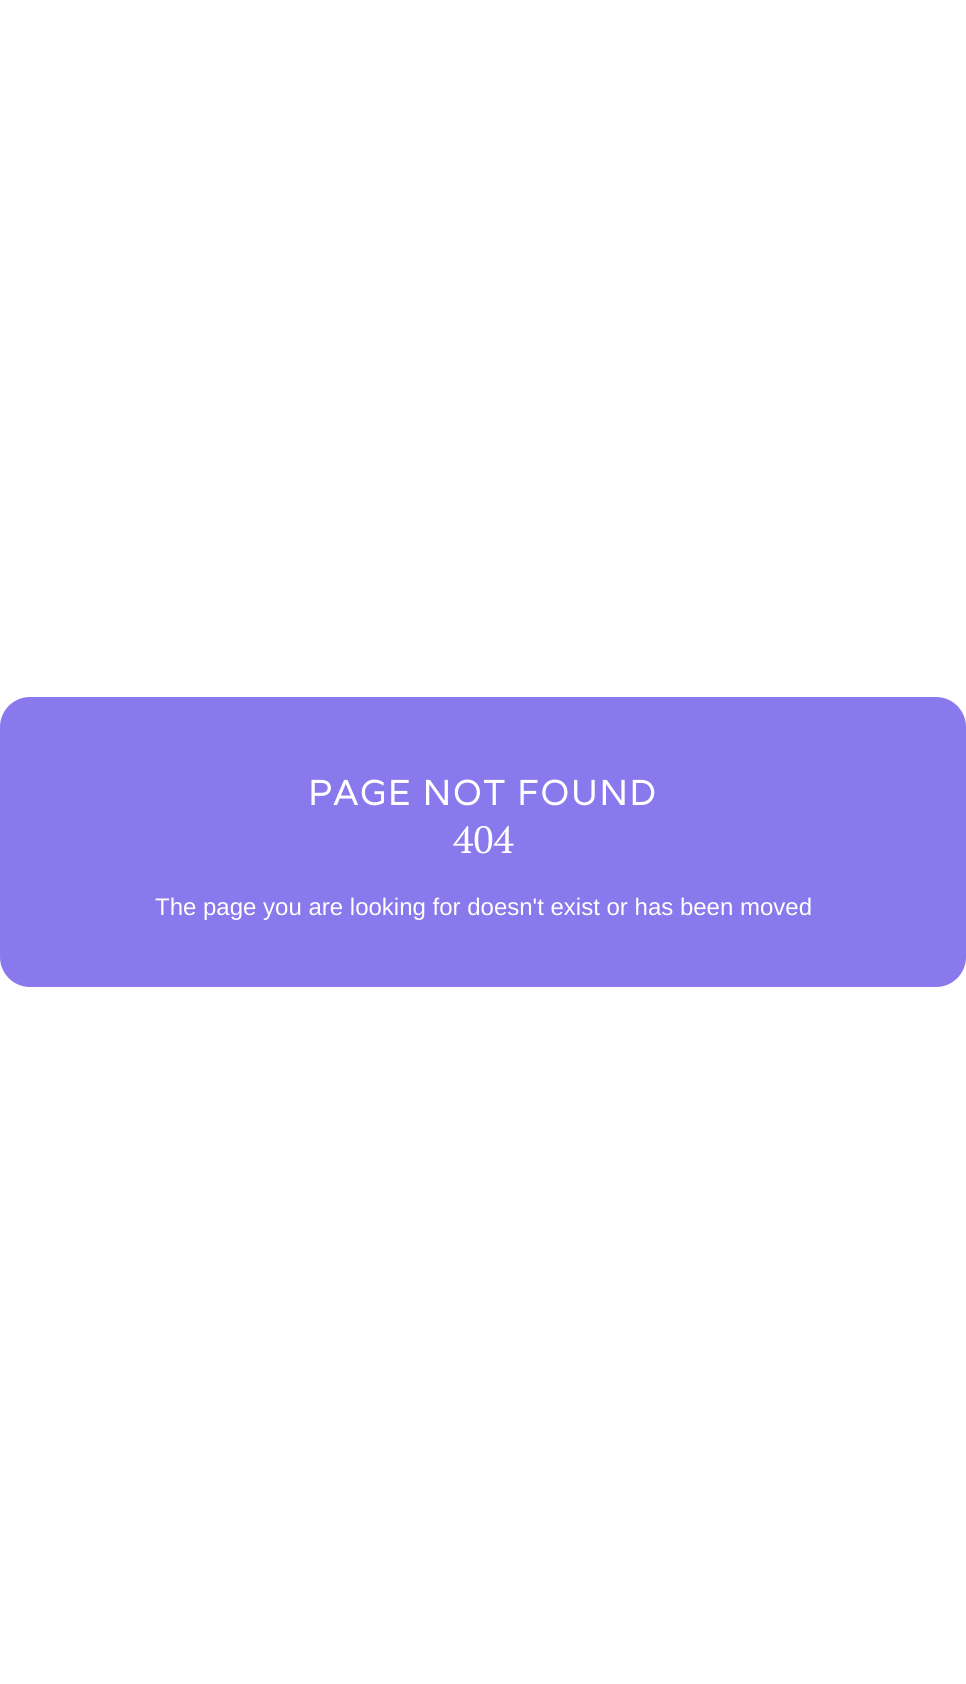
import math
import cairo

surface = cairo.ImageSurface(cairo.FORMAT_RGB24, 966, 1684)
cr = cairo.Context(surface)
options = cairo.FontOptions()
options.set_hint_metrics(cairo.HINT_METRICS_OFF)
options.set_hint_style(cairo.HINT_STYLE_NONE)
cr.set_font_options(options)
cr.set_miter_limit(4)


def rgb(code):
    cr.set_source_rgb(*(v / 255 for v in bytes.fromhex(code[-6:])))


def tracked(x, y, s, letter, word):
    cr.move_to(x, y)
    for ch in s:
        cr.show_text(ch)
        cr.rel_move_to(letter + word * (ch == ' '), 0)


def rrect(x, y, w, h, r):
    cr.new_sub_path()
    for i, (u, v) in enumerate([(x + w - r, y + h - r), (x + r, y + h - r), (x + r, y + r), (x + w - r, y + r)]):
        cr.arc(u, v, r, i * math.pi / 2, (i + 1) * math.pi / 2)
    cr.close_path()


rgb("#ffffff")
cr.paint()
rgb("#8979ec")
rrect(0, 697, 966, 290, 30)
cr.fill()
cr.select_font_face("Varela")
cr.set_font_size(36)
rgb("#ffffff")
tracked(308, 805, "PAGE NOT FOUND", 1.25, 0)
cr.select_font_face("PT Serif")
cr.set_font_size(38)
cr.move_to(453, 853)
cr.show_text("404")
cr.select_font_face("Liberation Sans")
cr.set_font_size(24)
cr.move_to(155, 915)
cr.show_text("The page you are looking for doesn't exist or has been moved")
surface.write_to_png("page.png")
